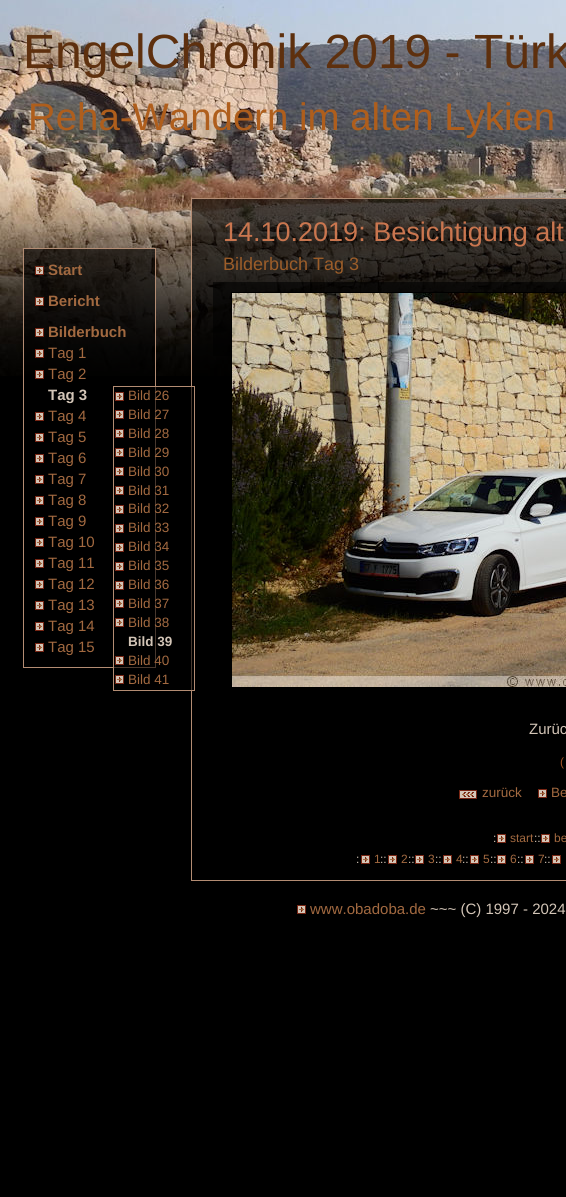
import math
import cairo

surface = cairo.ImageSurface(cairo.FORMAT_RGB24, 566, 1197)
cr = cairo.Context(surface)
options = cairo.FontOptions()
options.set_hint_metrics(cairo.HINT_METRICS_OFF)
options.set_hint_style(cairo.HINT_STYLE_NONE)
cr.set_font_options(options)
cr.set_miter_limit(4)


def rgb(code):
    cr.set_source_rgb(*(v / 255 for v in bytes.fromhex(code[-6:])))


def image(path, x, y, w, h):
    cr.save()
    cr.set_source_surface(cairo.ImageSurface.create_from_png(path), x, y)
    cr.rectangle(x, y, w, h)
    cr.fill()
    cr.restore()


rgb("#000000")
cr.paint()
image("img/1.png", 0, 0, 566, 376)
cr.set_source_rgba(0, 0, 0, 0.6)
cr.rectangle(24, 249, 131, 127)
cr.fill()
cr.rectangle(23.5, 248.5, 132, 419)
rgb("#b38c73")
cr.set_line_width(1)
cr.stroke()
image("img/2.png", 35, 266, 9, 9)
image("img/2.png", 35, 297, 9, 9)
image("img/2.png", 35, 328, 9, 9)
image("img/2.png", 35, 349, 9, 9)
image("img/2.png", 35, 370, 9, 9)
image("img/2.png", 35, 412, 9, 9)
image("img/2.png", 35, 433, 9, 9)
image("img/2.png", 35, 454, 9, 9)
image("img/2.png", 35, 475, 9, 9)
image("img/2.png", 35, 496, 9, 9)
image("img/2.png", 35, 517, 9, 9)
image("img/2.png", 35, 538, 9, 9)
image("img/2.png", 35, 559, 9, 9)
image("img/2.png", 35, 580, 9, 9)
image("img/2.png", 35, 601, 9, 9)
image("img/2.png", 35, 622, 9, 9)
image("img/2.png", 35, 643, 9, 9)
cr.set_source_rgba(0, 0, 0, 0.6)
cr.rectangle(192, 199, 374, 177)
cr.fill()
cr.rectangle(191.5, 198.5, 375, 682)
rgb("#b38c73")
cr.stroke()
cr.set_source_rgba(0, 0, 0, 0.6)
cr.rectangle(114, 387, 78, 303)
cr.fill()
cr.rectangle(113.5, 386.5, 81, 304)
rgb("#b38c73")
cr.stroke()
image("img/2.png", 115, 392, 9, 9)
image("img/2.png", 115, 410, 9, 9)
image("img/2.png", 115, 429, 9, 9)
image("img/2.png", 115, 448, 9, 9)
image("img/2.png", 115, 467, 9, 9)
image("img/2.png", 115, 486, 9, 9)
image("img/2.png", 115, 505, 9, 9)
image("img/2.png", 115, 524, 9, 9)
image("img/2.png", 115, 543, 9, 9)
image("img/2.png", 115, 562, 9, 9)
image("img/2.png", 115, 581, 9, 9)
image("img/2.png", 115, 599, 9, 9)
image("img/2.png", 115, 618, 9, 9)
image("img/2.png", 115, 656, 9, 9)
image("img/2.png", 115, 675, 9, 9)
cr.set_source_rgba(0, 0, 0, 0.6)
cr.rectangle(213, 282, 353, 74)
cr.fill()
cr.rectangle(231.5, 292.5, 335, 395)
rgb("#000000")
cr.stroke()
image("img/3.png", 232, 293, 334, 394)
image("img/4.png", 459, 790, 18, 9)
image("img/2.png", 538, 789, 9, 9)
image("img/2.png", 497, 834, 9, 9)
image("img/2.png", 541, 834, 9, 9)
image("img/2.png", 361, 855, 9, 9)
image("img/2.png", 388, 855, 9, 9)
image("img/2.png", 415, 855, 9, 9)
image("img/2.png", 443, 855, 9, 9)
image("img/2.png", 470, 855, 9, 9)
image("img/2.png", 497, 855, 9, 9)
image("img/2.png", 525, 855, 9, 9)
image("img/2.png", 552, 855, 9, 9)
image("img/2.png", 297, 905, 9, 9)
cr.select_font_face("Liberation Sans")
cr.set_font_size(48)
rgb("#5e300e")
cr.move_to(23, 68)
cr.show_text("EngelChronik 2019 - Türk")
cr.set_font_size(38.4)
rgb("#af5e1c")
cr.move_to(28, 130)
cr.show_text("Reha-Wandern im alten Lykien")
cr.select_font_face("Liberation Sans", cairo.FONT_SLANT_NORMAL, cairo.FONT_WEIGHT_BOLD)
cr.set_font_size(15)
rgb("#a26940")
for x, y, s in [
    (48, 275, "Start"),
    (48, 306, "Bericht"),
    (48, 337, "Bilderbuch"),
]:
    cr.move_to(x, y)
    cr.show_text(s)
cr.select_font_face("Liberation Sans")
cr.move_to(48, 358)
cr.show_text("Tag 1")
cr.move_to(48, 379)
cr.show_text("Tag 2")
cr.select_font_face("Liberation Sans", cairo.FONT_SLANT_NORMAL, cairo.FONT_WEIGHT_BOLD)
rgb("#d3c5b7")
cr.move_to(48, 400)
cr.show_text("Tag 3")
cr.select_font_face("Liberation Sans")
rgb("#a26940")
for x, y, s in [
    (48, 421, "Tag 4"),
    (48, 442, "Tag 5"),
    (48, 463, "Tag 6"),
    (48, 484, "Tag 7"),
    (48, 505, "Tag 8"),
    (48, 526, "Tag 9"),
    (48, 547, "Tag 10"),
    (48, 568, "Tag 11"),
    (48, 589, "Tag 12"),
    (48, 610, "Tag 13"),
    (48, 631, "Tag 14"),
    (48, 652, "Tag 15"),
]:
    cr.move_to(x, y)
    cr.show_text(s)
cr.set_font_size(13.5)
for x, y, s in [
    (128, 400, "Bild 26"),
    (128, 419, "Bild 27"),
    (128, 438, "Bild 28"),
    (128, 457, "Bild 29"),
    (128, 476, "Bild 30"),
    (128, 495, "Bild 31"),
    (128, 513, "Bild 32"),
    (128, 532, "Bild 33"),
    (128, 551, "Bild 34"),
    (128, 570, "Bild 35"),
    (128, 589, "Bild 36"),
    (128, 608, "Bild 37"),
    (128, 627, "Bild 38"),
]:
    cr.move_to(x, y)
    cr.show_text(s)
cr.select_font_face("Liberation Sans", cairo.FONT_SLANT_NORMAL, cairo.FONT_WEIGHT_BOLD)
rgb("#d3c5b7")
cr.move_to(128, 646)
cr.show_text("Bild 39")
cr.select_font_face("Liberation Sans")
rgb("#a26940")
cr.move_to(128, 665)
cr.show_text("Bild 40")
cr.move_to(128, 684)
cr.show_text("Bild 41")
cr.set_font_size(27)
rgb("#ca764f")
cr.move_to(223, 241)
cr.show_text("14.10.2019: Besichtigung alt")
cr.set_font_size(18)
rgb("#9c5d29")
cr.move_to(223, 270)
cr.show_text("Bilderbuch Tag 3")
cr.set_font_size(15)
rgb("#d3c5b7")
cr.move_to(529, 734)
cr.show_text("Zurüc")
cr.set_font_size(12)
rgb("#a25426")
cr.move_to(560, 766)
cr.show_text("(")
cr.set_font_size(13.5)
rgb("#a26940")
cr.move_to(482, 797)
cr.show_text("zurück")
cr.move_to(551, 797)
cr.show_text("Be")
cr.set_font_size(12)
rgb("#d3c5b7")
cr.move_to(493, 842)
cr.show_text(":")
rgb("#a26940")
cr.move_to(510, 842)
cr.show_text("start")
rgb("#d3c5b7")
cr.move_to(534, 842)
cr.show_text("::")
rgb("#a26940")
cr.move_to(554, 842)
cr.show_text("be")
rgb("#d3c5b7")
cr.move_to(356, 863)
cr.show_text(":")
rgb("#a26940")
cr.move_to(374, 863)
cr.show_text("1")
rgb("#d3c5b7")
cr.move_to(380, 863)
cr.show_text("::")
rgb("#a26940")
cr.move_to(401, 863)
cr.show_text("2")
rgb("#d3c5b7")
cr.move_to(408, 863)
cr.show_text("::")
rgb("#a26940")
cr.move_to(428, 863)
cr.show_text("3")
rgb("#d3c5b7")
cr.move_to(435, 863)
cr.show_text("::")
rgb("#a26940")
cr.move_to(456, 863)
cr.show_text("4")
rgb("#d3c5b7")
cr.move_to(462, 863)
cr.show_text("::")
rgb("#a26940")
cr.move_to(483, 863)
cr.show_text("5")
rgb("#d3c5b7")
cr.move_to(490, 863)
cr.show_text("::")
rgb("#a26940")
cr.move_to(510, 863)
cr.show_text("6")
rgb("#d3c5b7")
cr.move_to(517, 863)
cr.show_text("::")
rgb("#a26940")
cr.move_to(538, 863)
cr.show_text("7")
rgb("#d3c5b7")
cr.move_to(544, 863)
cr.show_text("::")
cr.set_font_size(15)
rgb("#a26940")
cr.move_to(310, 914)
cr.show_text("www.obadoba.de")
rgb("#d3c5b7")
cr.move_to(430, 914)
cr.show_text("~~~ (C) 1997 - 2024")
surface.write_to_png("page.png")
